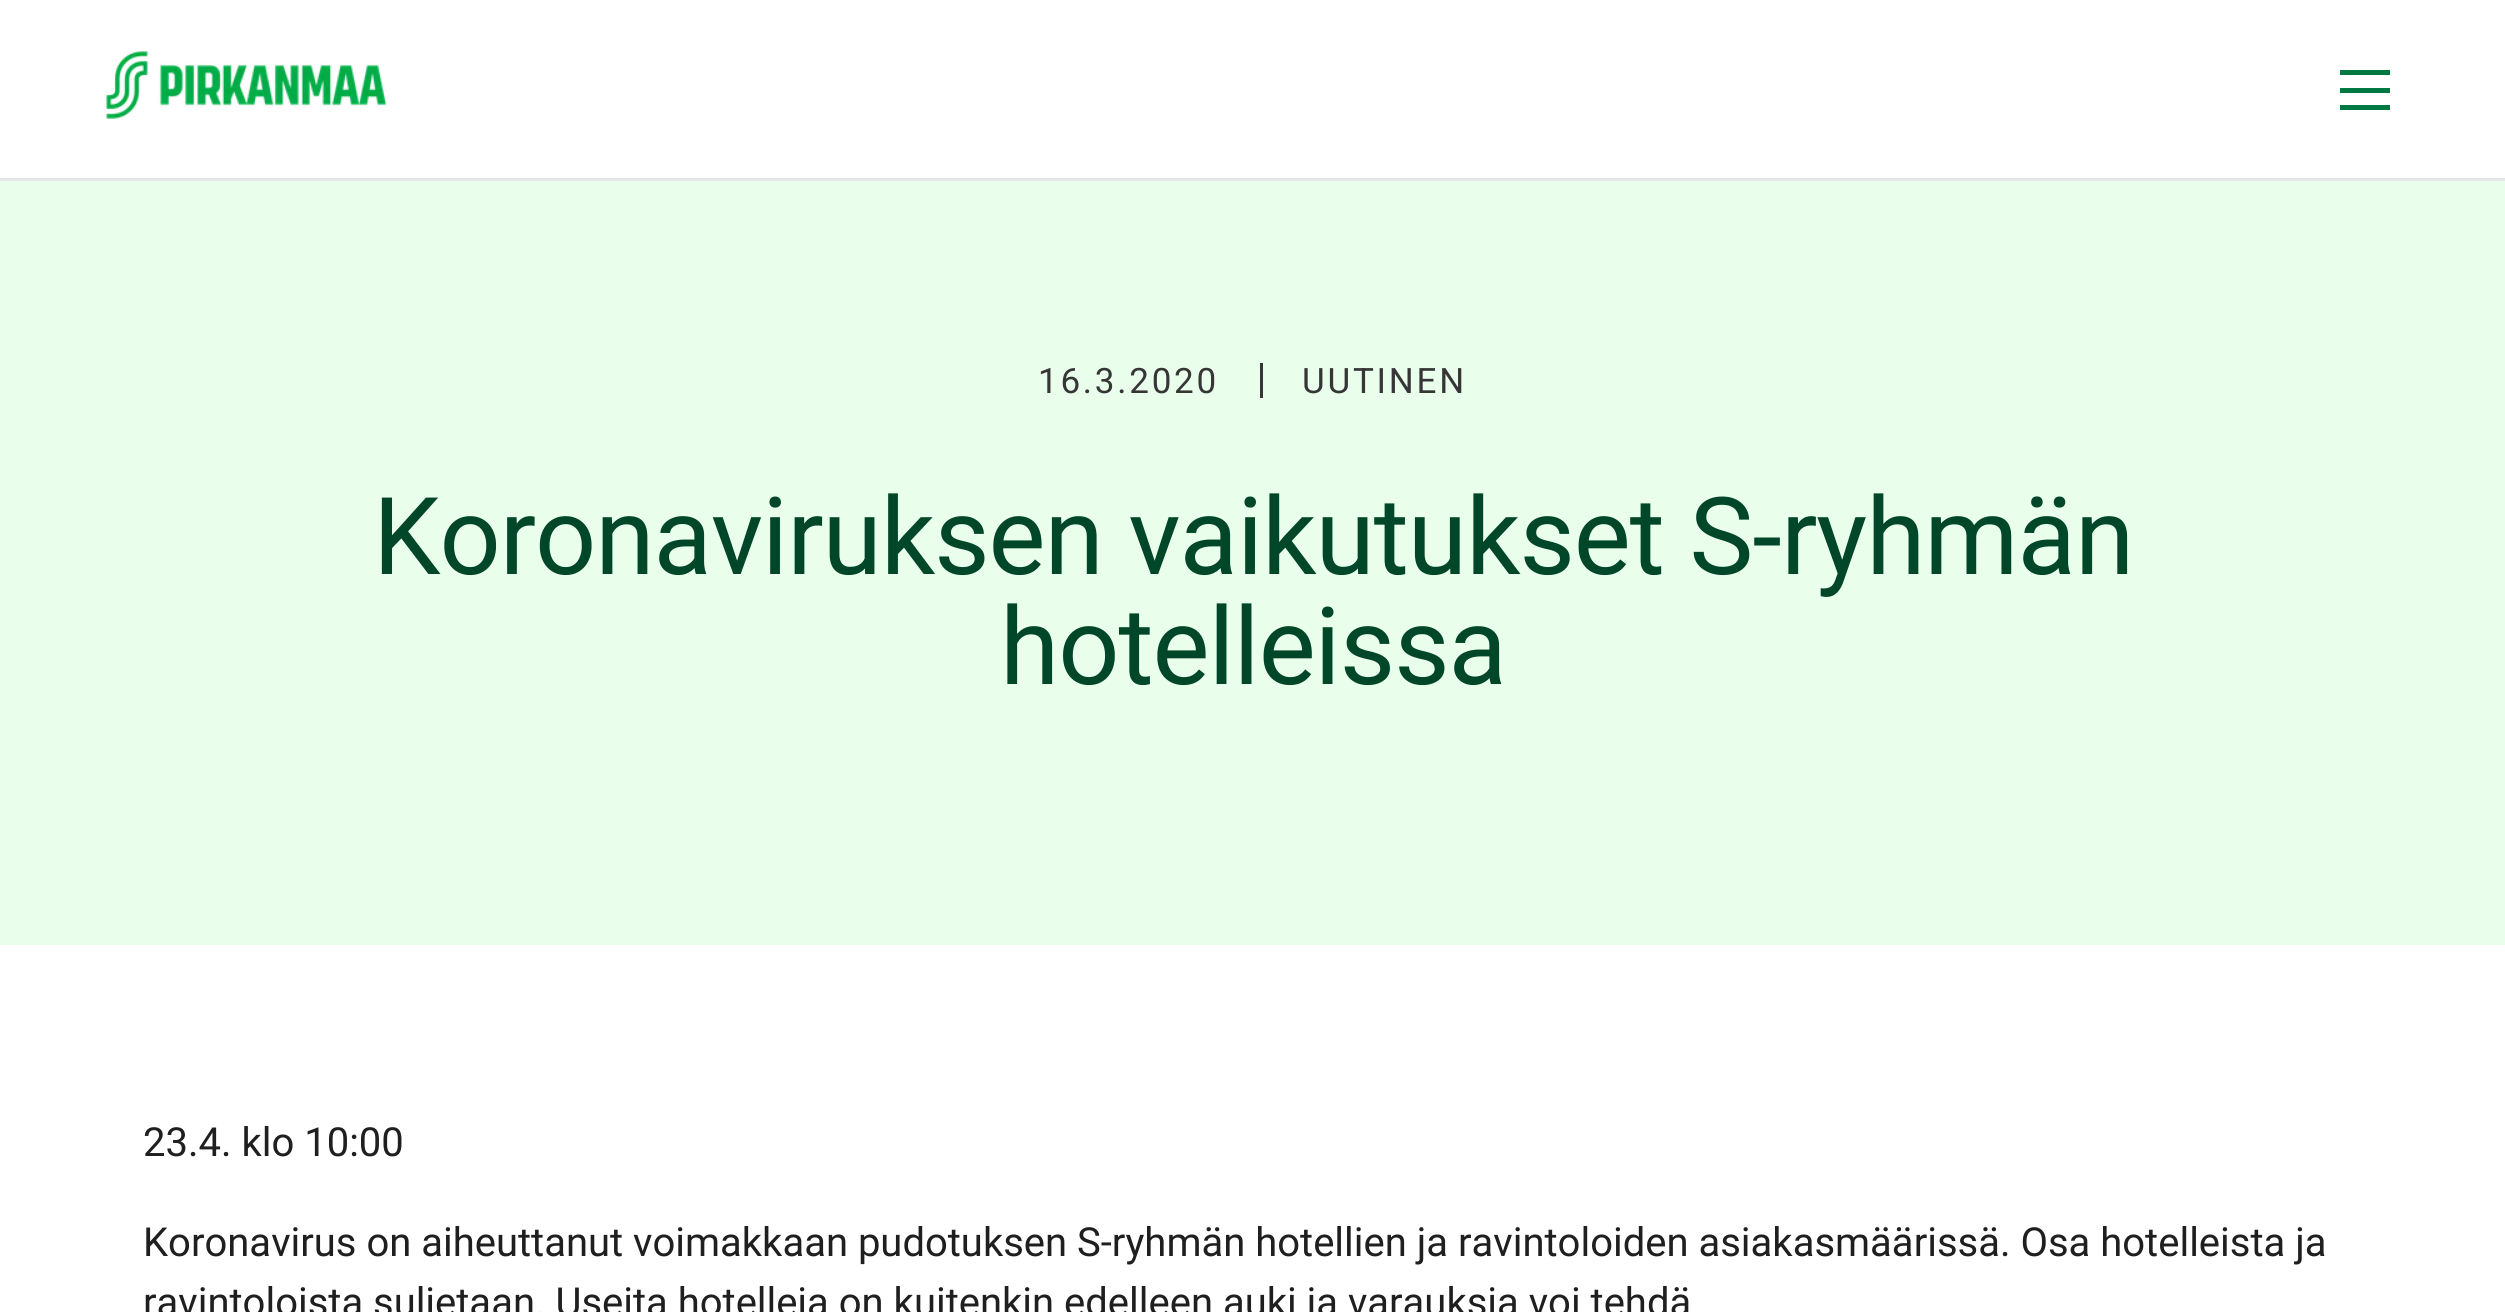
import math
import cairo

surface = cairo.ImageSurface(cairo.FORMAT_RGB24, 2505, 1312)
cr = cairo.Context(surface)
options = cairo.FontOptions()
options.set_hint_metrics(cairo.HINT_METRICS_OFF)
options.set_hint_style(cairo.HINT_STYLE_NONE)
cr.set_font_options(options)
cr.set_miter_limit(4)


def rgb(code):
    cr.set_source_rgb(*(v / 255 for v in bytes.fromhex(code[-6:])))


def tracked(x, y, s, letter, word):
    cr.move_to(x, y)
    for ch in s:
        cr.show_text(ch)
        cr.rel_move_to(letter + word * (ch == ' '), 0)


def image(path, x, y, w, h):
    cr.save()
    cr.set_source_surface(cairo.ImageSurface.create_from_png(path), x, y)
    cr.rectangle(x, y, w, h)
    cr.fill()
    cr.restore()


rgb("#ffffff")
cr.paint()
rgb("#e6e6e6")
cr.rectangle(0, 178, 2505, 3)
cr.fill()
image("img/1.png", 106, 51, 281, 68)
for x, y, w, h, color in [
    (2340, 88, 50, 5, "#007841"),
    (2340, 70, 50, 5, "#007841"),
    (2340, 105, 50, 5, "#007841"),
    (0, 181, 2505, 764, "#eafeec"),
    (1260, 363, 3, 35, "#363636"),
]:
    rgb(color)
    cr.rectangle(x, y, w, h)
    cr.fill()
cr.select_font_face("Roboto")
cr.set_font_size(35)
tracked(1038, 393, "16.3.2020", 2.75, 0)
tracked(1302, 393, "UUTINEN", 2.75, 0)
cr.set_font_size(107.5)
rgb("#004628")
tracked(373, 574, "Koronaviruksen vaikutukset S-ryhmän", -1.05, 0)
tracked(1000, 684, "hotelleissa", -1.05, 0)
cr.set_font_size(40)
rgb("#1f1f1f")
for x, y, s in [
    (143, 1156, "23.4. klo 10:00"),
    (143, 1256, "Koronavirus on aiheuttanut voimakkaan pudotuksen S-ryhmän hotellien ja ravintoloiden asiakasmäärissä. Osa hotelleista ja"),
    (143, 1316, "ravintoloista suljetaan. Useita hotelleja on kuitenkin edelleen auki ja varauksia voi tehdä"),
]:
    cr.move_to(x, y)
    cr.show_text(s)
surface.write_to_png("page.png")
